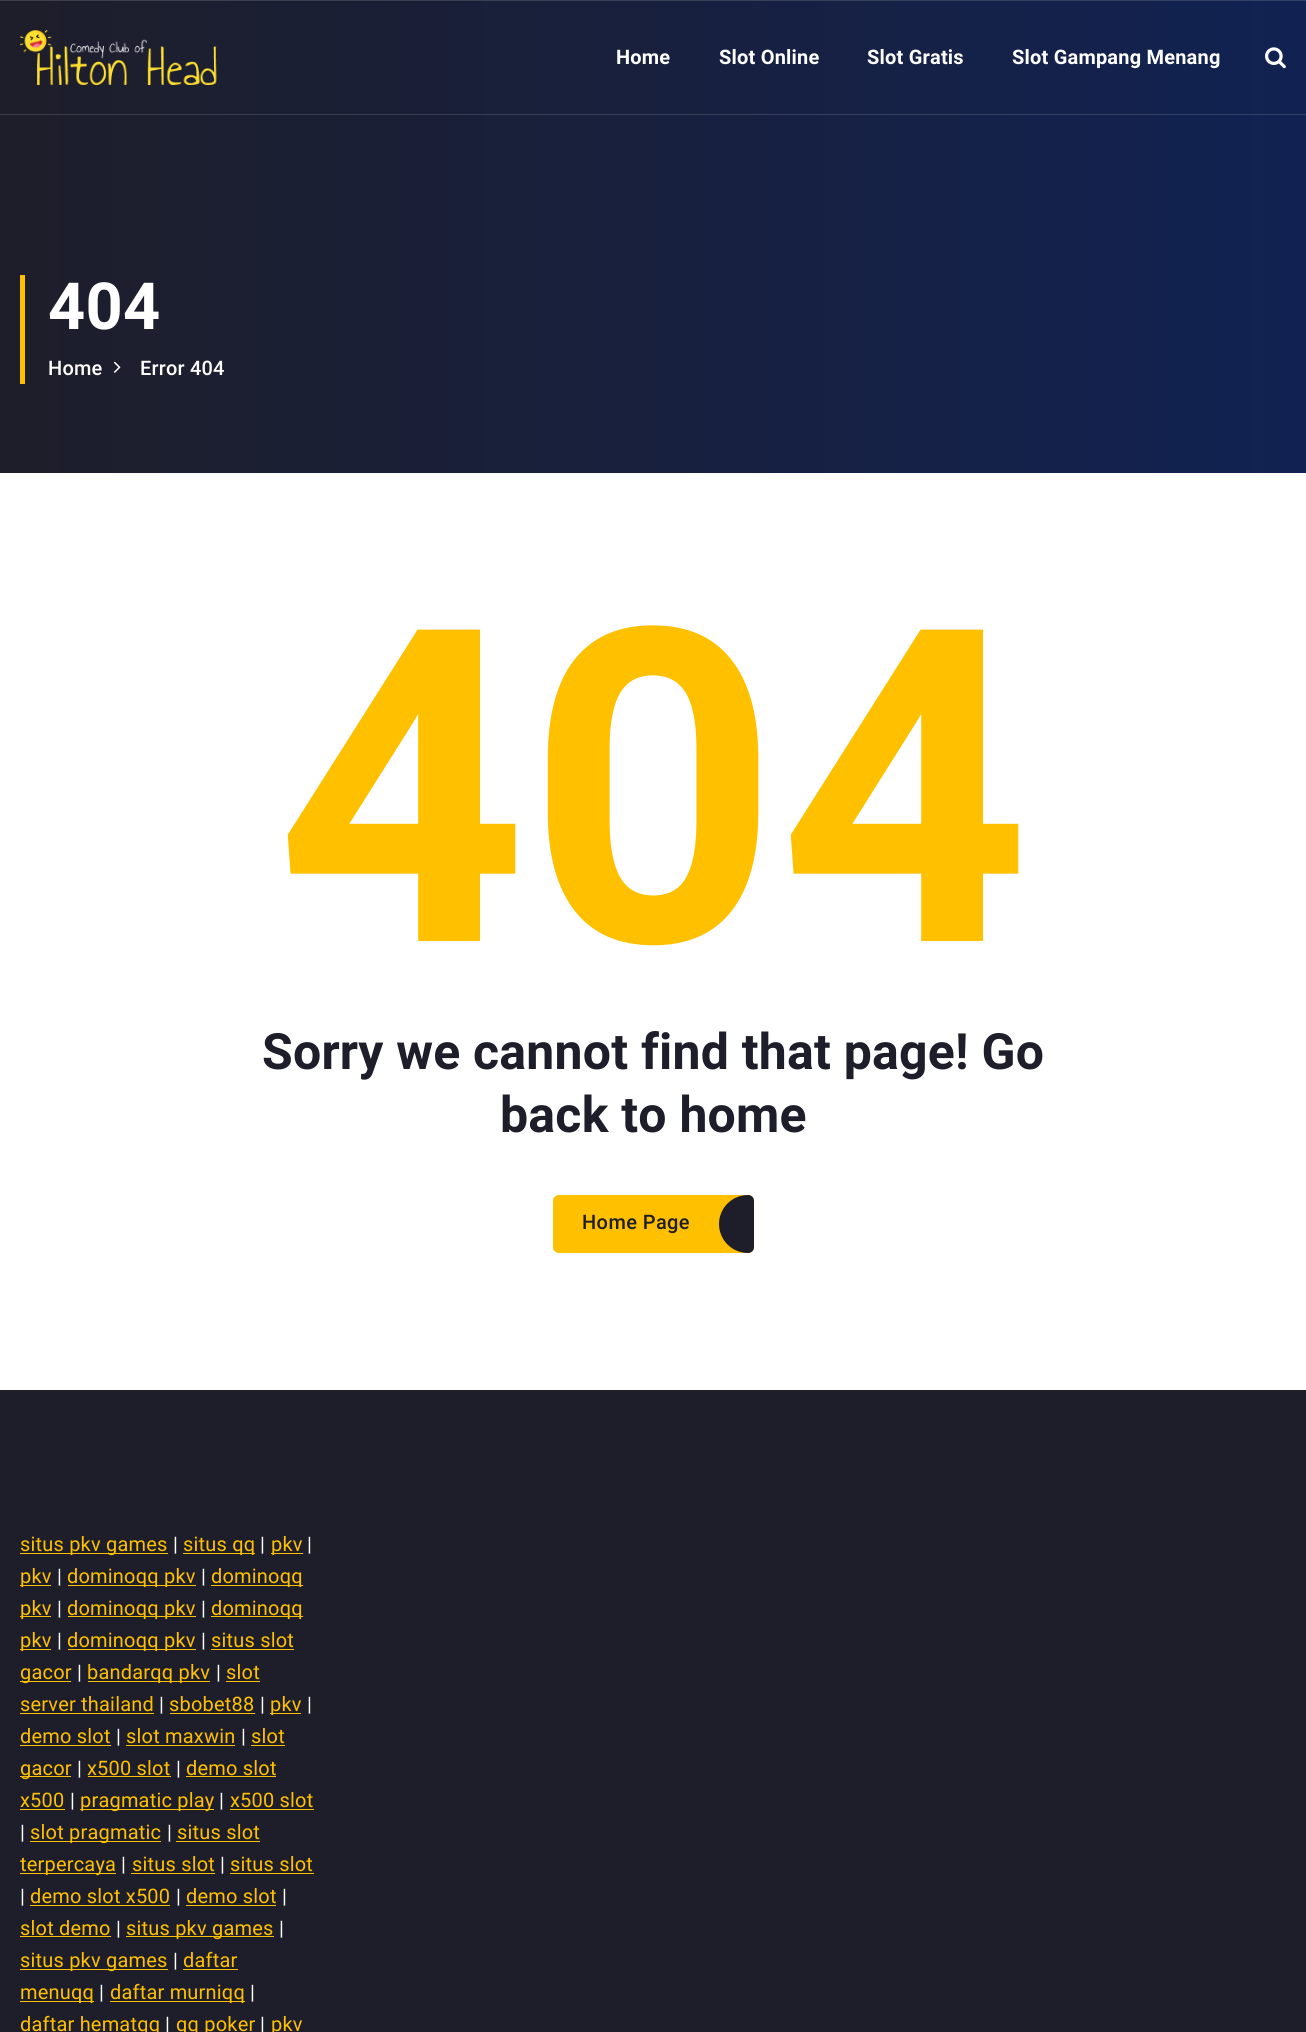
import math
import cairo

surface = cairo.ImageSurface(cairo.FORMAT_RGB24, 1306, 2032)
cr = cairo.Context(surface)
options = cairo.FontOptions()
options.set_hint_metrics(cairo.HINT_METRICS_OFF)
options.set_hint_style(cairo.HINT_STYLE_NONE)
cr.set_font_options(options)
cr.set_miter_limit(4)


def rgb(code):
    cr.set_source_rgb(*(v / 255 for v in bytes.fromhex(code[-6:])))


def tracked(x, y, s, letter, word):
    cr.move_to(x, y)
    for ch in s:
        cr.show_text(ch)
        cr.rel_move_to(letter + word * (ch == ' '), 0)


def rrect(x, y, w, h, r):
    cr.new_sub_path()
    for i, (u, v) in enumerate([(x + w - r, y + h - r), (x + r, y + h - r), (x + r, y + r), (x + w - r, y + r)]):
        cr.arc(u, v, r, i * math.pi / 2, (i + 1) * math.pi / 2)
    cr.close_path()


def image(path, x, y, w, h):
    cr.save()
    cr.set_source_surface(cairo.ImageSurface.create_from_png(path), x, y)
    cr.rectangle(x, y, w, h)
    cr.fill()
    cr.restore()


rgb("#ffffff")
cr.paint()
gradient = cairo.LinearGradient(0, 236, 1306, 236)
gradient.add_color_stop_rgba(0, 0.118, 0.118, 0.165, 1)
gradient.add_color_stop_rgba(1, 0.067, 0.133, 0.322, 1)
cr.set_source(gradient)
cr.rectangle(0, 1, 1306, 472)
cr.fill()
image("img/1.png", 20, 30, 197, 55)
image("img/2.png", 1265, 47, 21, 22)
gradient = cairo.LinearGradient(0, 236, 1306, 236)
gradient.add_color_stop_rgba(0, 0.243, 0.243, 0.278, 1)
gradient.add_color_stop_rgba(1, 0.2, 0.255, 0.404, 1)
cr.set_source(gradient)
cr.rectangle(0, 0, 1306, 1)
cr.fill()
cr.rectangle(0, 114, 1306, 1)
cr.fill()
rgb("#ffc000")
cr.rectangle(20, 275, 5, 109)
cr.fill()
image("img/3.png", 113, 361, 8, 12)
rrect(553, 1195, 201, 58, 6)
cr.fill()
rgb("#1e1e2a")
cr.new_path()
cr.move_to(748, 1195)
cr.curve_to(751.5, 1195, 754, 1197.5, 754, 1201)
cr.line_to(754, 1247)
cr.curve_to(754, 1250.5, 751.5, 1253, 748, 1253)
cr.curve_to(732, 1253, 719, 1240, 719, 1224)
cr.curve_to(719, 1208, 732, 1195, 748, 1195)
cr.close_path()
cr.fill()
for x, y, w, h, color in [
    (0, 1390, 1306, 642, "#1e1e2a"),
    (20, 1553, 148, 1, "#ffc000"),
    (183, 1553, 72, 1, "#ffc000"),
    (271, 1553, 32, 1, "#ffc000"),
    (20, 1585, 31, 1, "#ffc000"),
    (68, 1585, 128, 1, "#ffc000"),
    (211, 1585, 92, 1, "#ffc000"),
    (20, 1616, 31, 1, "#ffc000"),
    (68, 1616, 128, 1, "#ffc000"),
    (211, 1616, 92, 1, "#ffc000"),
    (20, 1649, 31, 1, "#ffc000"),
    (68, 1649, 128, 1, "#ffc000"),
    (211, 1649, 83, 1, "#ffc000"),
    (20, 1681, 51, 1, "#ffc000"),
    (88, 1681, 122, 1, "#ffc000"),
    (226, 1681, 34, 1, "#ffc000"),
    (20, 1713, 134, 1, "#ffc000"),
    (170, 1713, 85, 1, "#ffc000"),
    (270, 1713, 31, 1, "#ffc000"),
    (20, 1745, 91, 1, "#ffc000"),
    (126, 1745, 109, 1, "#ffc000"),
    (251, 1745, 34, 1, "#ffc000"),
    (20, 1776, 51, 1, "#ffc000"),
    (88, 1776, 83, 1, "#ffc000"),
    (186, 1776, 90, 1, "#ffc000"),
    (20, 1809, 45, 1, "#ffc000"),
    (80, 1809, 134, 1, "#ffc000"),
    (230, 1809, 84, 1, "#ffc000"),
    (30, 1841, 131, 1, "#ffc000"),
    (176, 1841, 84, 1, "#ffc000"),
    (20, 1873, 96, 1, "#ffc000"),
    (131, 1873, 84, 1, "#ffc000"),
    (230, 1873, 84, 1, "#ffc000"),
    (30, 1905, 140, 1, "#ffc000"),
    (186, 1905, 90, 1, "#ffc000"),
    (20, 1936, 91, 1, "#ffc000"),
    (126, 1936, 148, 1, "#ffc000"),
    (20, 1969, 148, 1, "#ffc000"),
    (183, 1969, 55, 1, "#ffc000"),
    (20, 2001, 74, 1, "#ffc000"),
    (110, 2001, 135, 1, "#ffc000"),
]:
    rgb(color)
    cr.rectangle(x, y, w, h)
    cr.fill()
cr.select_font_face("Roboto", cairo.FONT_SLANT_NORMAL, cairo.FONT_WEIGHT_BOLD)
cr.set_font_size(20)
rgb("#ffffff")
for x, y, s in [
    (616, 64, "Home"),
    (719, 64, "Slot Online"),
    (867, 64, "Slot Gratis"),
    (1012, 64, "Slot Gampang Menang"),
]:
    tracked(x, y, s, 0.2, 0)
cr.set_font_size(65)
tracked(48, 329, "404", 0.2, 0)
cr.select_font_face("Roboto Medium")
cr.set_font_size(20)
tracked(48, 375, "Home", 0.2, 0)
tracked(140, 375, "Error 404", 0.2, 0)
cr.select_font_face("Roboto", cairo.FONT_SLANT_NORMAL, cairo.FONT_WEIGHT_BOLD)
cr.set_font_size(438)
rgb("#ffc000")
tracked(276, 941, "404", 0.2, 0)
cr.set_font_size(50)
rgb("#1e1e2a")
tracked(262, 1069, "Sorry we cannot find that page! Go", 0.2, 0)
tracked(500, 1132, "back to home", 0.2, 0)
cr.select_font_face("Roboto Medium")
cr.set_font_size(20)
tracked(582, 1229, "Home Page", 0.4, 0)
cr.select_font_face("Roboto")
rgb("#ffc000")
tracked(20, 1551, "situs pkv games", 0.2, 0)
rgb("#ffffff")
tracked(173, 1551, "|", 0.2, 0)
rgb("#ffc000")
tracked(183, 1551, "situs qq", 0.2, 0)
rgb("#ffffff")
tracked(260, 1551, "|", 0.2, 0)
rgb("#ffc000")
tracked(271, 1551, "pkv", 0.2, 0)
rgb("#ffffff")
tracked(307, 1551, "|", 0.2, 0)
rgb("#ffc000")
tracked(20, 1583, "pkv", 0.2, 0)
rgb("#ffffff")
tracked(57, 1583, "|", 0.2, 0)
rgb("#ffc000")
tracked(67, 1583, "dominoqq pkv", 0.2, 0)
rgb("#ffffff")
tracked(201, 1583, "|", 0.2, 0)
rgb("#ffc000")
tracked(211, 1583, "dominoqq", 0.2, 0)
tracked(20, 1615, "pkv", 0.2, 0)
rgb("#ffffff")
tracked(57, 1615, "|", 0.2, 0)
rgb("#ffc000")
tracked(67, 1615, "dominoqq pkv", 0.2, 0)
rgb("#ffffff")
tracked(201, 1615, "|", 0.2, 0)
rgb("#ffc000")
tracked(211, 1615, "dominoqq", 0.2, 0)
tracked(20, 1647, "pkv", 0.2, 0)
rgb("#ffffff")
tracked(57, 1647, "|", 0.2, 0)
rgb("#ffc000")
tracked(67, 1647, "dominoqq pkv", 0.2, 0)
rgb("#ffffff")
tracked(201, 1647, "|", 0.2, 0)
rgb("#ffc000")
tracked(211, 1647, "situs slot", 0.2, 0)
tracked(20, 1679, "gacor", 0.2, 0)
rgb("#ffffff")
tracked(77, 1679, "|", 0.2, 0)
rgb("#ffc000")
tracked(87, 1679, "bandarqq pkv", 0.2, 0)
rgb("#ffffff")
tracked(216, 1679, "|", 0.2, 0)
rgb("#ffc000")
tracked(226, 1679, "slot", 0.2, 0)
tracked(20, 1711, "server thailand", 0.2, 0)
rgb("#ffffff")
tracked(159, 1711, "|", 0.2, 0)
rgb("#ffc000")
tracked(169, 1711, "sbobet88", 0.2, 0)
rgb("#ffffff")
tracked(260, 1711, "|", 0.2, 0)
rgb("#ffc000")
tracked(270, 1711, "pkv", 0.2, 0)
rgb("#ffffff")
tracked(307, 1711, "|", 0.2, 0)
rgb("#ffc000")
tracked(20, 1743, "demo slot", 0.2, 0)
rgb("#ffffff")
tracked(116, 1743, "|", 0.2, 0)
rgb("#ffc000")
tracked(126, 1743, "slot maxwin", 0.2, 0)
rgb("#ffffff")
tracked(241, 1743, "|", 0.2, 0)
rgb("#ffc000")
tracked(251, 1743, "slot", 0.2, 0)
tracked(20, 1775, "gacor", 0.2, 0)
rgb("#ffffff")
tracked(77, 1775, "|", 0.2, 0)
rgb("#ffc000")
tracked(87, 1775, "x500 slot", 0.2, 0)
rgb("#ffffff")
tracked(176, 1775, "|", 0.2, 0)
rgb("#ffc000")
tracked(186, 1775, "demo slot", 0.2, 0)
tracked(20, 1807, "x500", 0.2, 0)
rgb("#ffffff")
tracked(70, 1807, "|", 0.2, 0)
rgb("#ffc000")
tracked(80, 1807, "pragmatic play", 0.2, 0)
rgb("#ffffff")
tracked(219, 1807, "|", 0.2, 0)
rgb("#ffc000")
tracked(230, 1807, "x500 slot", 0.2, 0)
rgb("#ffffff")
tracked(20, 1839, "|", 0.2, 0)
rgb("#ffc000")
tracked(30, 1839, "slot pragmatic", 0.2, 0)
rgb("#ffffff")
tracked(167, 1839, "|", 0.2, 0)
rgb("#ffc000")
tracked(177, 1839, "situs slot", 0.2, 0)
tracked(20, 1871, "terpercaya", 0.2, 0)
rgb("#ffffff")
tracked(121, 1871, "|", 0.2, 0)
rgb("#ffc000")
tracked(132, 1871, "situs slot", 0.2, 0)
rgb("#ffffff")
tracked(220, 1871, "|", 0.2, 0)
rgb("#ffc000")
tracked(230, 1871, "situs slot", 0.2, 0)
rgb("#ffffff")
tracked(20, 1903, "|", 0.2, 0)
rgb("#ffc000")
tracked(30, 1903, "demo slot x500", 0.2, 0)
rgb("#ffffff")
tracked(176, 1903, "|", 0.2, 0)
rgb("#ffc000")
tracked(186, 1903, "demo slot", 0.2, 0)
rgb("#ffffff")
tracked(282, 1903, "|", 0.2, 0)
rgb("#ffc000")
tracked(20, 1935, "slot demo", 0.2, 0)
rgb("#ffffff")
tracked(116, 1935, "|", 0.2, 0)
rgb("#ffc000")
tracked(126, 1935, "situs pkv games", 0.2, 0)
rgb("#ffffff")
tracked(279, 1935, "|", 0.2, 0)
rgb("#ffc000")
tracked(20, 1967, "situs pkv games", 0.2, 0)
rgb("#ffffff")
tracked(173, 1967, "|", 0.2, 0)
rgb("#ffc000")
tracked(183, 1967, "daftar", 0.2, 0)
tracked(20, 1999, "menuqq", 0.2, 0)
rgb("#ffffff")
tracked(99, 1999, "|", 0.2, 0)
rgb("#ffc000")
tracked(110, 1999, "daftar murniqq", 0.2, 0)
rgb("#ffffff")
tracked(250, 1999, "|", 0.2, 0)
rgb("#ffc000")
tracked(20, 2031, "daftar hematqq", 0.2, 0)
rgb("#ffffff")
tracked(165, 2031, "|", 0.2, 0)
rgb("#ffc000")
tracked(176, 2031, "qq poker", 0.2, 0)
rgb("#ffffff")
tracked(260, 2031, "|", 0.2, 0)
rgb("#ffc000")
tracked(271, 2031, "pkv", 0.2, 0)
surface.write_to_png("page.png")
